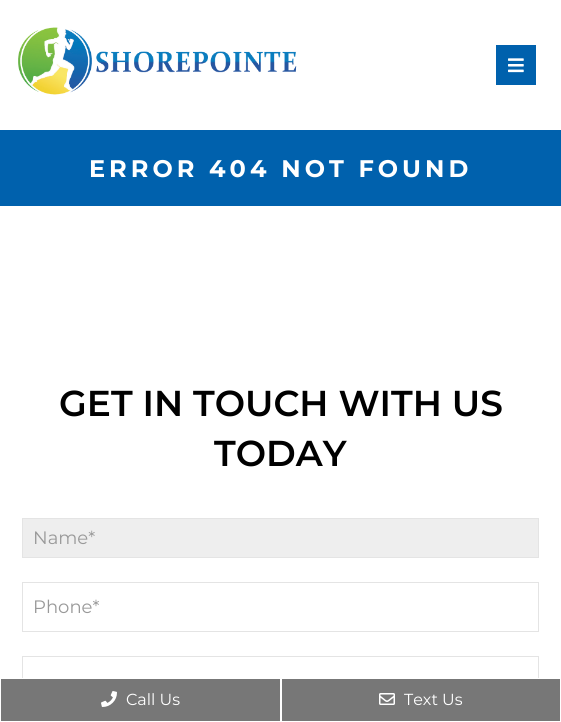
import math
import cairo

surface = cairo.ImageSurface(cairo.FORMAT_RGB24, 561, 722)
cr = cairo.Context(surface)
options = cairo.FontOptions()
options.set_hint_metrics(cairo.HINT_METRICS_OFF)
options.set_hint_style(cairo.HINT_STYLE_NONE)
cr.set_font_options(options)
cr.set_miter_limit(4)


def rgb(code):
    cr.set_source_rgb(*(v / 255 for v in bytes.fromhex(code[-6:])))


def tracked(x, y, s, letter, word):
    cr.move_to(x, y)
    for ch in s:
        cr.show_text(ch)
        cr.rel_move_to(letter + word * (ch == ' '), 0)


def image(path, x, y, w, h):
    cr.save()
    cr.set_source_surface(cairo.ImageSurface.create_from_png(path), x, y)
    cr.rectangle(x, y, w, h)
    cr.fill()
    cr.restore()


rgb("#ffffff")
cr.paint()
image("img/1.png", 18, 27, 279, 68)
rgb("#0061ad")
cr.rectangle(496, 45, 40, 40)
cr.fill()
image("img/2.png", 508, 58, 16, 15)
cr.rectangle(0, 130, 561, 76)
cr.fill()
rgb("#eeeeee")
cr.rectangle(22.5, 518.5, 516, 39)
cr.fill_preserve()
rgb("#e4e4e4")
cr.set_line_width(1)
cr.stroke()
cr.rectangle(22.5, 582.5, 516, 49)
cr.stroke()
cr.rectangle(22.5, 656.5, 516, 49)
cr.stroke()
rgb("#777777")
cr.rectangle(0.5, 678.5, 280, 43)
cr.fill_preserve()
rgb("#ffffff")
cr.stroke()
image("img/3.png", 101, 691, 16, 16)
rgb("#777777")
cr.rectangle(281.5, 678.5, 279, 43)
cr.fill_preserve()
rgb("#ffffff")
cr.stroke()
image("img/4.png", 379, 693, 16, 12)
cr.select_font_face("Montserrat", cairo.FONT_SLANT_NORMAL, cairo.FONT_WEIGHT_BOLD)
cr.set_font_size(24)
tracked(89, 177, "ERROR 404 NOT FOUND", 4, 0)
cr.select_font_face("Montserrat SemiBold")
cr.set_font_size(36)
rgb("#000000")
cr.move_to(59, 416)
cr.show_text("GET IN TOUCH WITH US")
cr.move_to(214, 466)
cr.show_text("TODAY")
cr.select_font_face("Montserrat")
cr.set_font_size(18)
rgb("#999999")
cr.move_to(33, 544)
cr.show_text("Name*")
cr.move_to(33, 613)
cr.show_text("Phone*")
cr.set_font_size(16)
rgb("#ffffff")
cr.move_to(126, 705)
cr.show_text("Call Us")
cr.move_to(404, 705)
cr.show_text("Text Us")
surface.write_to_png("page.png")
